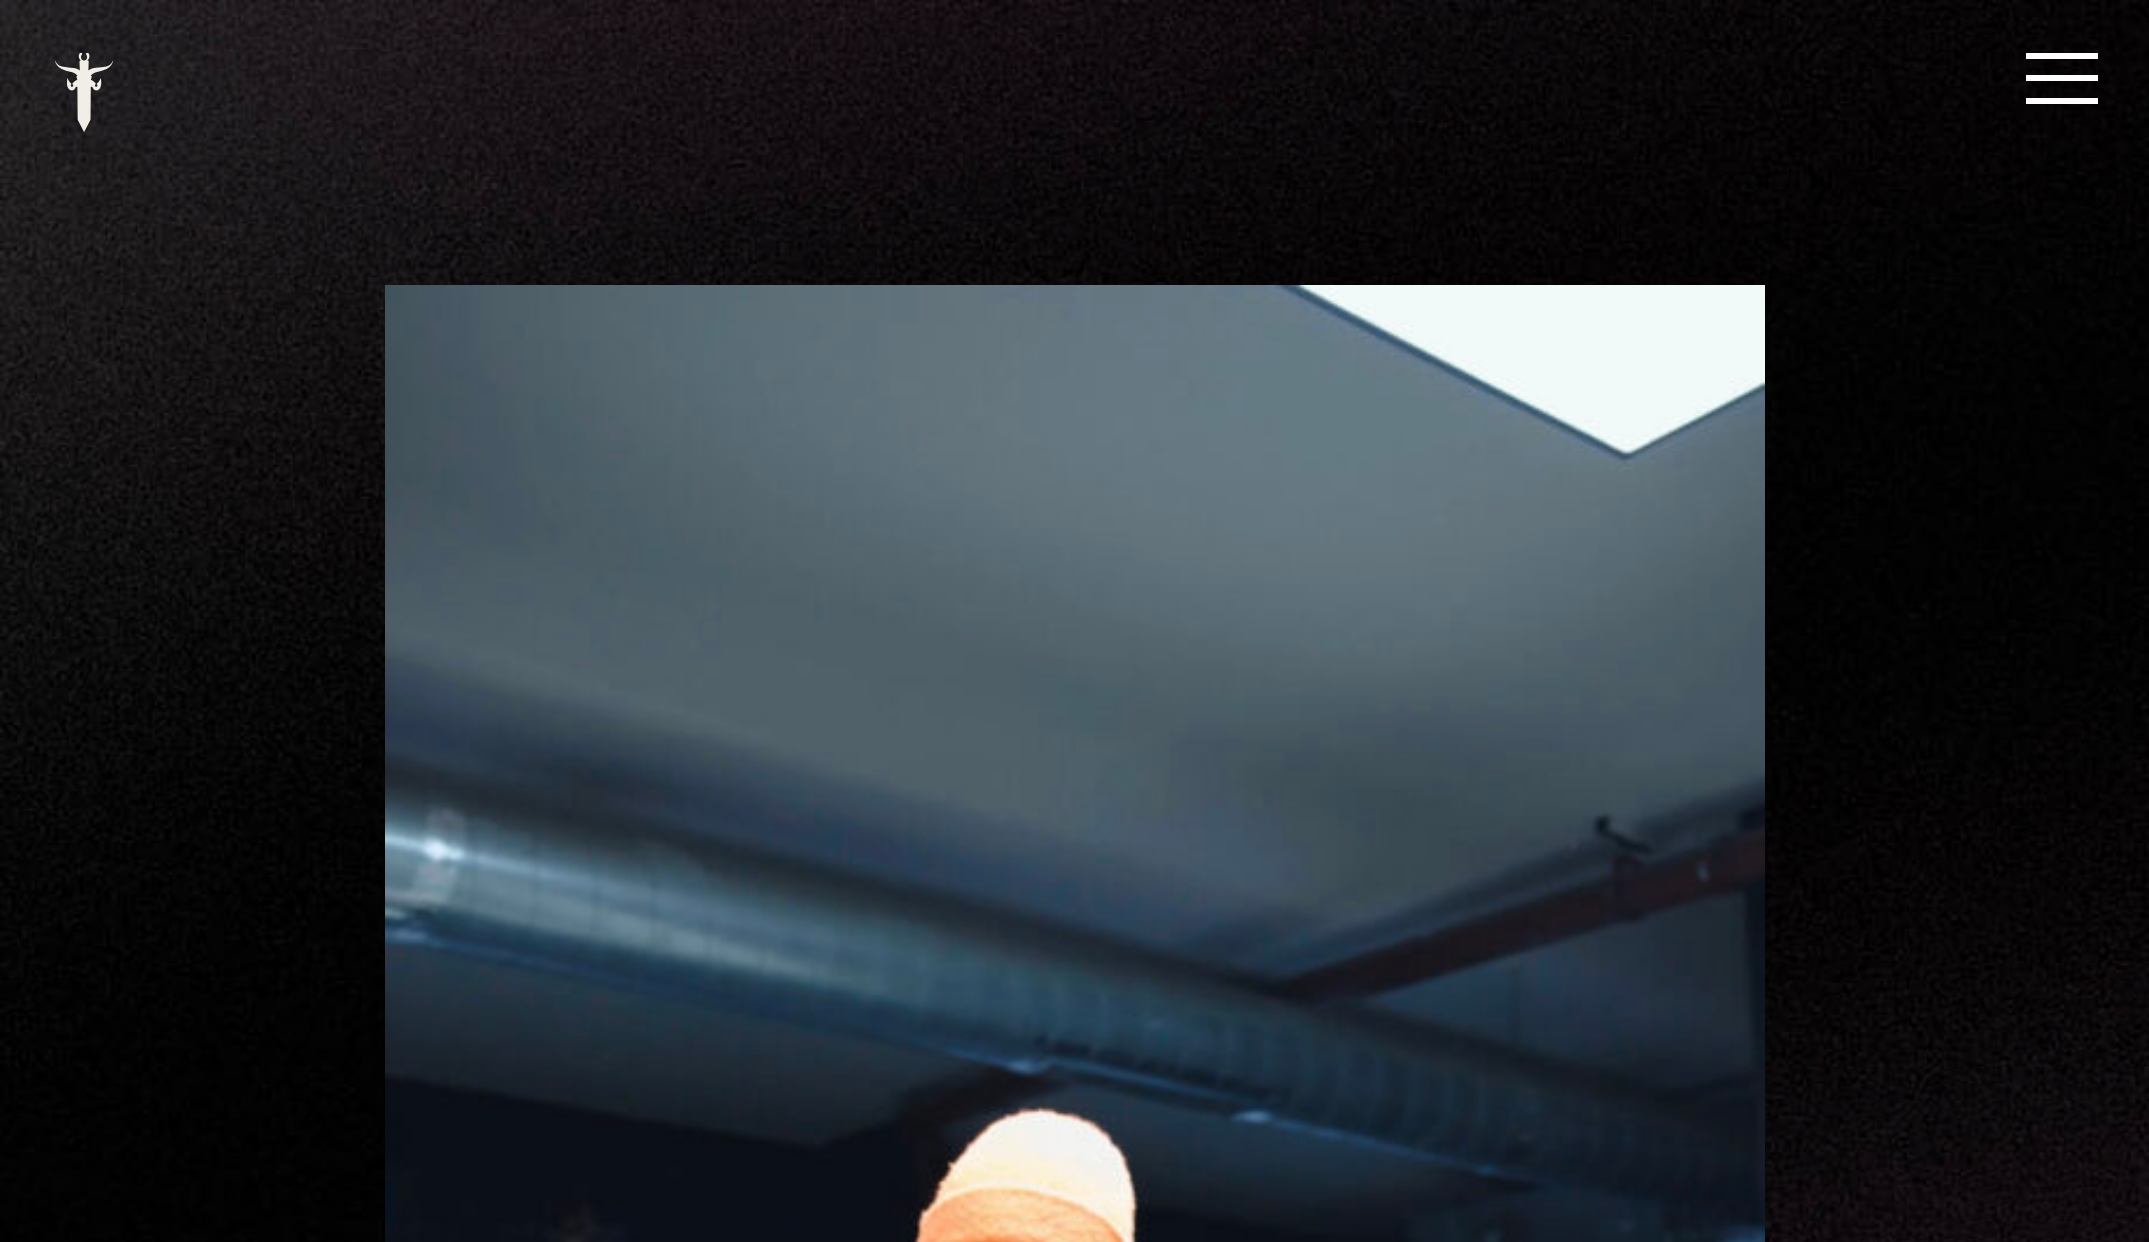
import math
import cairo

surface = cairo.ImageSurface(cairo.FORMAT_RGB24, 2149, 1242)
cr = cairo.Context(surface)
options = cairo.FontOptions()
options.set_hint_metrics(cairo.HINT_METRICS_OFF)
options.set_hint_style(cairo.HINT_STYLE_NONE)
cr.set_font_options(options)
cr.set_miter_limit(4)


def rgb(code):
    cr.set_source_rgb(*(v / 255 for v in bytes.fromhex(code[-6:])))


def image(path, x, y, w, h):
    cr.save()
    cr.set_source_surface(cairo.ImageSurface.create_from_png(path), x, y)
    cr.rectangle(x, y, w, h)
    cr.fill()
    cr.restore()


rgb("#ffffff")
cr.paint()
image("img/1.png", 0, 0, 2149, 1242)
image("img/2.png", 55, 53, 59, 79)
for x, y, w, h, color in [
    (2026, 53, 72, 6, "#ffffff"),
    (2026, 75, 72, 6, "#ffffff"),
    (2026, 98, 72, 6, "#ffffff"),
]:
    rgb(color)
    cr.rectangle(x, y, w, h)
    cr.fill()
image("img/3.png", 385, 285, 1380, 957)
surface.write_to_png("page.png")
